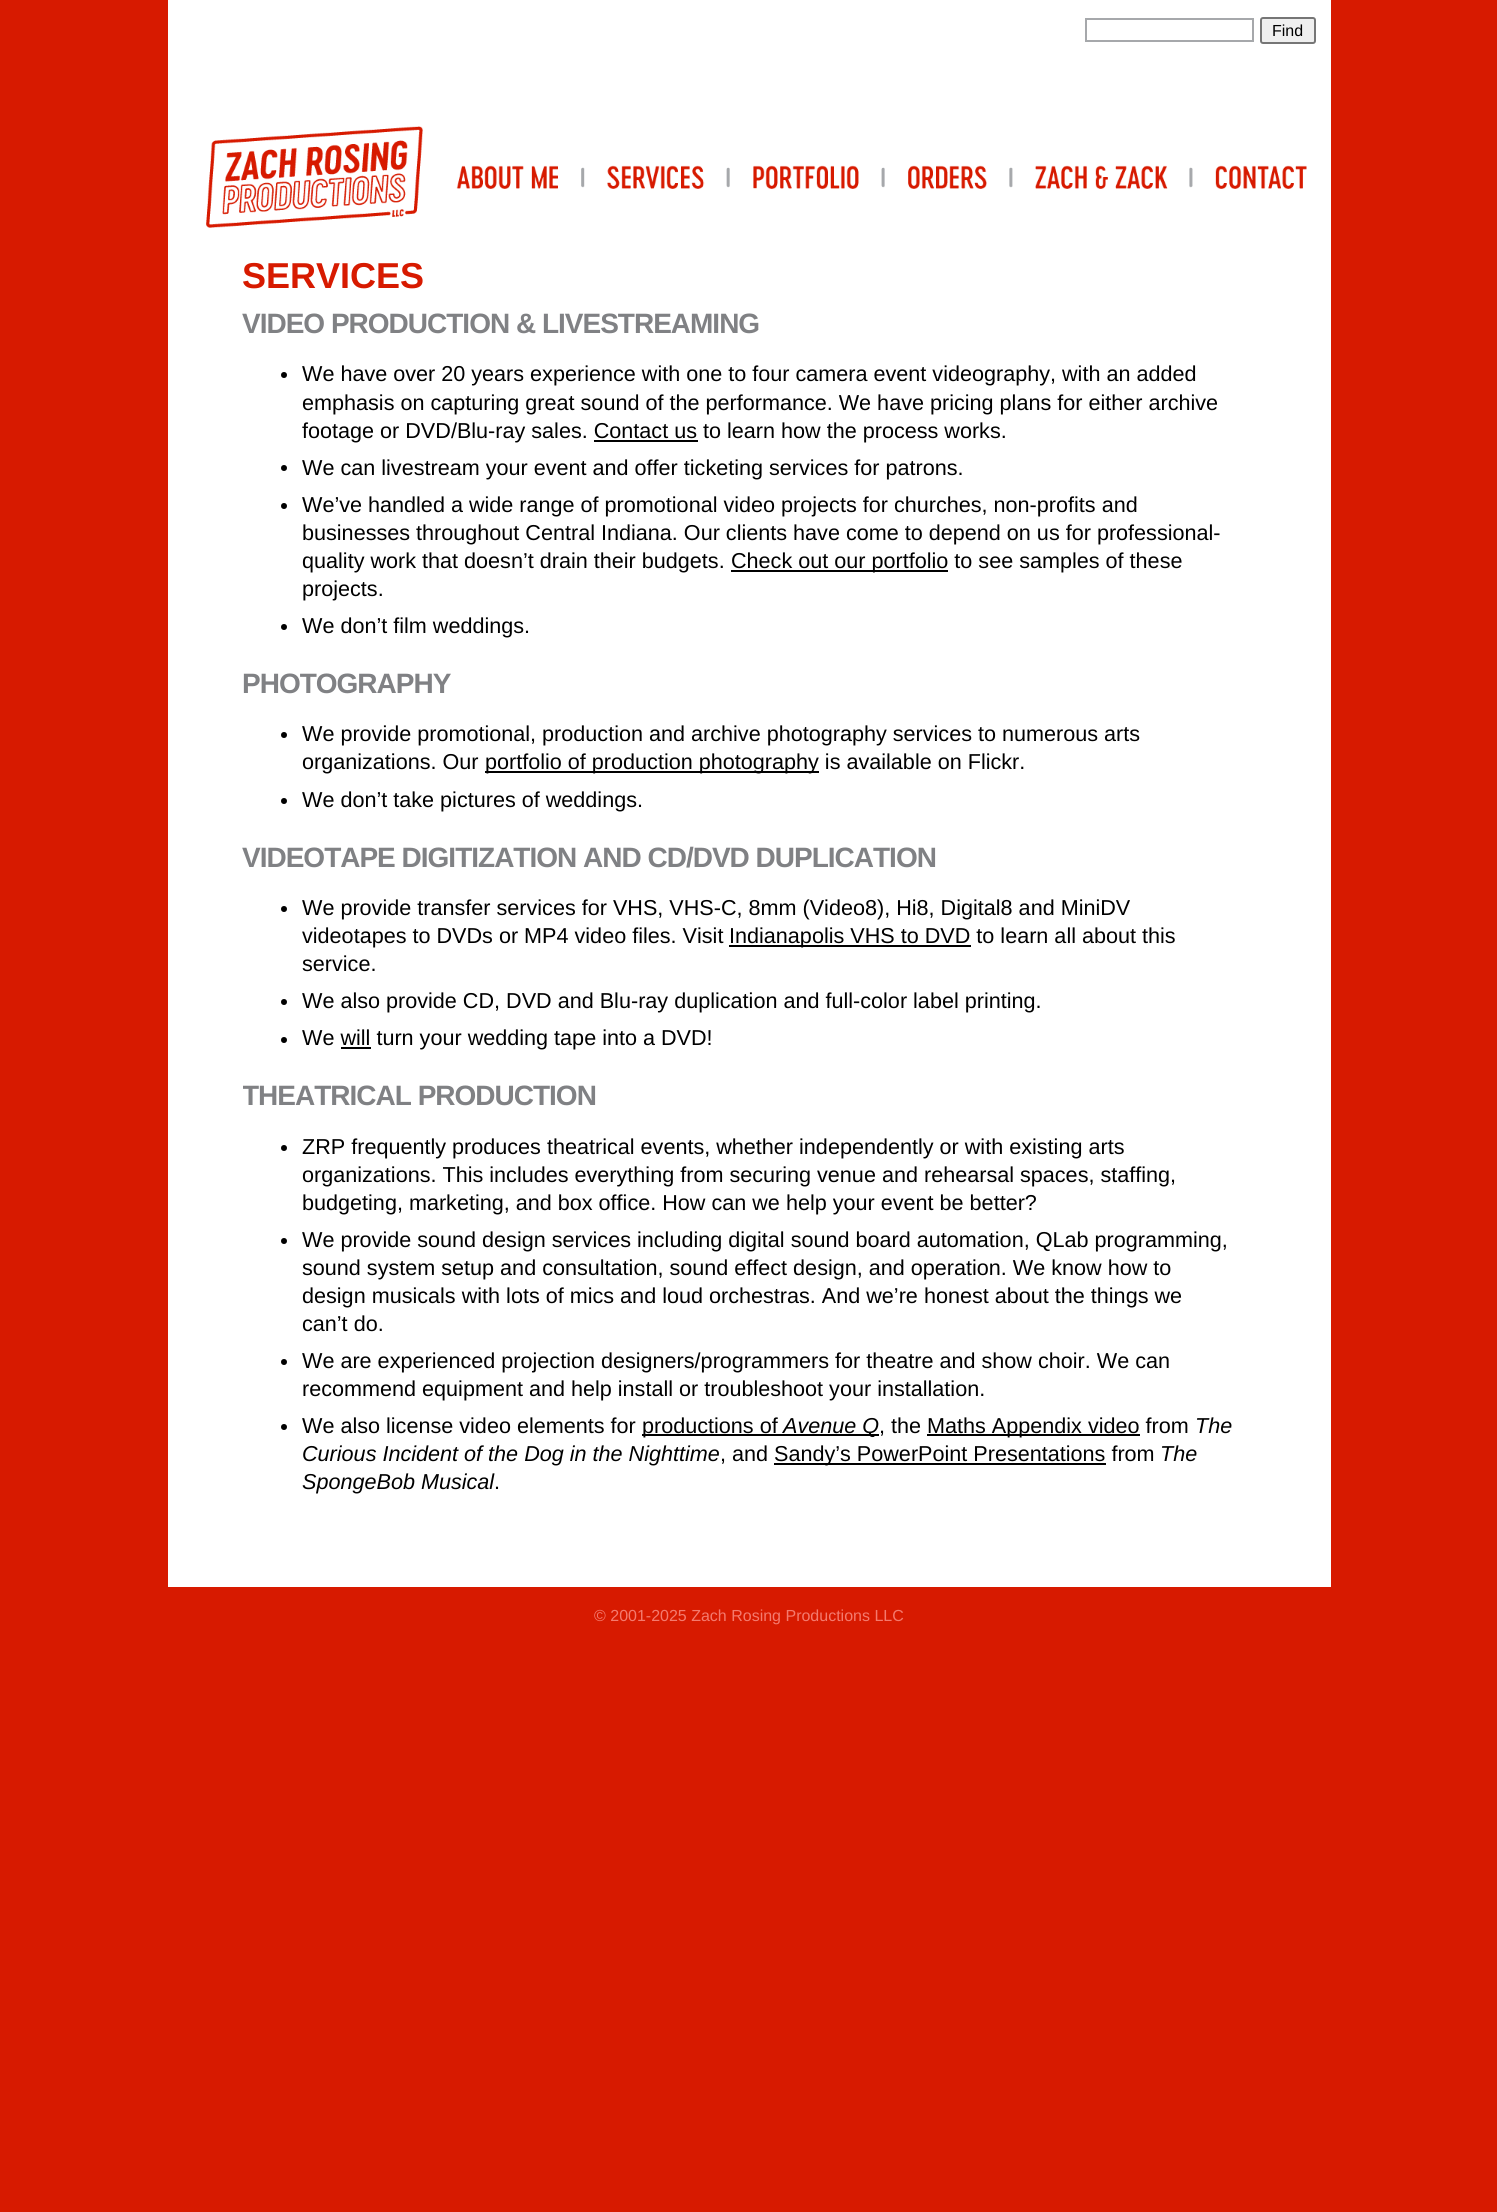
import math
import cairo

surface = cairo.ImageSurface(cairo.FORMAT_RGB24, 1497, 2212)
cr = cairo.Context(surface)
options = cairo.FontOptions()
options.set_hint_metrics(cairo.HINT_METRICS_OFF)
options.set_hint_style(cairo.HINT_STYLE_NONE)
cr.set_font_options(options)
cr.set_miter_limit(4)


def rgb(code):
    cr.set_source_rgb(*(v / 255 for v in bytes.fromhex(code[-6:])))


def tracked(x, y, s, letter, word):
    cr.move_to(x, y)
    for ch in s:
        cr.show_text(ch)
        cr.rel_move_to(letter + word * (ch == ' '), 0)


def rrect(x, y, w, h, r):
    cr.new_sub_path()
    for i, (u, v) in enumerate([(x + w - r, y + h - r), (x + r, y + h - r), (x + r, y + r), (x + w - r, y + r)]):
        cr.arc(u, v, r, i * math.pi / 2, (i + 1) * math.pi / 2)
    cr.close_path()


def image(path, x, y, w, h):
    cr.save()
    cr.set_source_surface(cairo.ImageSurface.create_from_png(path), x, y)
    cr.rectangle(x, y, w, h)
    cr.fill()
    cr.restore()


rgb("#d71a00")
cr.paint()
rgb("#ffffff")
cr.rectangle(168, 0, 1163, 1587)
cr.fill()
cr.rectangle(1086, 19, 167, 22)
rgb("#a6a8ab")
cr.stroke()
rgb("#efefef")
rrect(1261, 18, 54, 25, 2)
cr.fill_preserve()
rgb("#767676")
cr.stroke()
image("img/1.png", 206, 126, 217, 102)
image("img/2.png", 456, 165, 102, 24)
image("img/3.png", 581, 167, 4, 21)
image("img/4.png", 607, 165, 97, 24)
image("img/5.png", 703, 167, 27, 21)
image("img/6.png", 753, 165, 106, 24)
image("img/7.png", 881, 167, 4, 21)
image("img/8.png", 908, 165, 79, 24)
image("img/9.png", 1009, 167, 4, 21)
image("img/10.png", 1035, 165, 133, 24)
image("img/11.png", 1189, 167, 4, 21)
image("img/12.png", 1215, 165, 92, 24)
rgb("#000000")
cr.arc(284, 375, 3, 0, 2 * math.pi)
cr.fill()
cr.rectangle(594, 440, 104, 2)
cr.fill()
cr.arc(284, 468, 3, 0, 2 * math.pi)
cr.fill()
cr.arc(284, 506, 3, 0, 2 * math.pi)
cr.fill()
cr.rectangle(731, 570, 217, 2)
cr.fill()
cr.arc(284, 627, 3, 0, 2 * math.pi)
cr.fill()
cr.arc(284, 735, 3, 0, 2 * math.pi)
cr.fill()
cr.rectangle(485, 771, 334, 2)
cr.fill()
cr.arc(284, 801, 3, 0, 2 * math.pi)
cr.fill()
cr.arc(284, 909, 3, 0, 2 * math.pi)
cr.fill()
cr.rectangle(729, 945, 242, 2)
cr.fill()
cr.arc(284, 1002, 3, 0, 2 * math.pi)
cr.fill()
cr.arc(284, 1040, 3, 0, 2 * math.pi)
cr.fill()
cr.rectangle(341, 1047, 30, 2)
cr.fill()
cr.arc(284, 1148, 3, 0, 2 * math.pi)
cr.fill()
cr.arc(284, 1241, 3, 0, 2 * math.pi)
cr.fill()
cr.arc(284, 1362, 3, 0, 2 * math.pi)
cr.fill()
cr.arc(284, 1427, 3, 0, 2 * math.pi)
cr.fill()
for x, y, w, h, color in [
    (642, 1434, 237, 2, "#000000"),
    (927, 1434, 213, 2, "#000000"),
    (774, 1463, 332, 2, "#000000"),
]:
    rgb(color)
    cr.rectangle(x, y, w, h)
    cr.fill()
cr.select_font_face("Liberation Sans")
cr.set_font_size(16)
cr.move_to(1272, 36)
cr.show_text("Find")
cr.select_font_face("Liberation Sans", cairo.FONT_SLANT_NORMAL, cairo.FONT_WEIGHT_BOLD)
cr.set_font_size(36)
rgb("#d71a00")
cr.move_to(242, 288)
cr.show_text("SERVICES")
cr.set_font_size(28)
rgb("#808184")
tracked(242, 333, "VIDEO PRODUCTION & LIVESTREAMING", -1, 0)
cr.select_font_face("Liberation Sans")
cr.set_font_size(21.6)
rgb("#000000")
for x, y, s in [
    (302, 381, "We have over 20 years experience with one to four camera event videography, with an added"),
    (302, 410, "emphasis on capturing great sound of the performance. We have pricing plans for either archive"),
    (302, 438, "footage or DVD/Blu-ray sales. Contact us to learn how the process works."),
    (302, 475, "We can livestream your event and offer ticketing services for patrons."),
    (302, 512, "We’ve handled a wide range of promotional video projects for churches, non-profits and"),
    (302, 540, "businesses throughout Central Indiana. Our clients have come to depend on us for professional-"),
    (302, 568, "quality work that doesn’t drain their budgets."),
    (731, 568, "Check out our portfolio to see samples of these"),
    (302, 596, "projects."),
    (302, 633, "We don’t film weddings."),
]:
    cr.move_to(x, y)
    cr.show_text(s)
cr.select_font_face("Liberation Sans", cairo.FONT_SLANT_NORMAL, cairo.FONT_WEIGHT_BOLD)
cr.set_font_size(28)
rgb("#808184")
tracked(242, 693, "PHOTOGRAPHY", -1, 0)
cr.select_font_face("Liberation Sans")
cr.set_font_size(21.6)
rgb("#000000")
for x, y, s in [
    (302, 741, "We provide promotional, production and archive photography services to numerous arts"),
    (302, 769, "organizations. Our"),
    (485, 769, "portfolio of production photography is available on Flickr."),
    (302, 807, "We don’t take pictures of weddings."),
]:
    cr.move_to(x, y)
    cr.show_text(s)
cr.select_font_face("Liberation Sans", cairo.FONT_SLANT_NORMAL, cairo.FONT_WEIGHT_BOLD)
cr.set_font_size(28)
rgb("#808184")
tracked(242, 867, "VIDEOTAPE DIGITIZATION AND CD/DVD DUPLICATION", -1, 0)
cr.select_font_face("Liberation Sans")
cr.set_font_size(21.6)
rgb("#000000")
for x, y, s in [
    (302, 915, "We provide transfer services for VHS, VHS-C, 8mm (Video8), Hi8, Digital8 and MiniDV"),
    (302, 943, "videotapes to DVDs or MP4 video files. Visit"),
    (729, 943, "Indianapolis VHS to DVD to learn all about this"),
    (302, 971, "service."),
    (302, 1008, "We also provide CD, DVD and Blu-ray duplication and full-color label printing."),
    (302, 1045, "We will turn your wedding tape into a DVD!"),
]:
    cr.move_to(x, y)
    cr.show_text(s)
cr.save()
cr.rectangle(243, 243, 1013, 1284)
cr.clip()
cr.select_font_face("Liberation Sans", cairo.FONT_SLANT_NORMAL, cairo.FONT_WEIGHT_BOLD)
cr.set_font_size(28)
rgb("#808184")
tracked(242, 1105, "THEATRICAL PRODUCTION", -1, 0)
cr.restore()
for x, y, s in [
    (302, 1154, "ZRP frequently produces theatrical events, whether independently or with existing arts"),
    (302, 1182, "organizations. This includes everything from securing venue and rehearsal spaces, staffing,"),
    (302, 1210, "budgeting, marketing, and box office. How can we help your event be better?"),
    (302, 1247, "We provide sound design services including digital sound board automation, QLab programming,"),
    (302, 1275, "sound system setup and consultation, sound effect design, and operation. We know how to"),
    (302, 1303, "design musicals with lots of mics and loud orchestras. And we’re honest about the things we"),
    (302, 1331, "can’t do."),
    (302, 1368, "We are experienced projection designers/programmers for theatre and show choir. We can"),
    (302, 1396, "recommend equipment and help install or troubleshoot your installation."),
    (302, 1433, "We also license video elements for"),
    (642, 1433, "productions of"),
]:
    cr.move_to(x, y)
    cr.show_text(s)
cr.select_font_face("Liberation Sans", cairo.FONT_SLANT_ITALIC)
cr.move_to(783, 1433)
cr.show_text("Avenue Q")
cr.select_font_face("Liberation Sans")
cr.move_to(879, 1433)
cr.show_text(", the")
cr.move_to(927, 1433)
cr.show_text("Maths Appendix video from")
cr.select_font_face("Liberation Sans", cairo.FONT_SLANT_ITALIC)
cr.move_to(1195, 1433)
cr.show_text("The")
cr.move_to(302, 1461)
cr.show_text("Curious Incident of the Dog in the Nighttime")
cr.select_font_face("Liberation Sans")
cr.move_to(720, 1461)
cr.show_text(", and")
cr.move_to(774, 1461)
cr.show_text("Sandy’s PowerPoint Presentations from")
cr.select_font_face("Liberation Sans", cairo.FONT_SLANT_ITALIC)
cr.move_to(1160, 1461)
cr.show_text("The")
cr.move_to(302, 1489)
cr.show_text("SpongeBob Musical")
cr.select_font_face("Liberation Sans")
cr.move_to(494, 1489)
cr.show_text(".")
cr.set_font_size(16)
rgb("#f47a6e")
cr.move_to(594, 1621)
cr.show_text("© 2001-2025 Zach Rosing Productions LLC")
surface.write_to_png("page.png")
